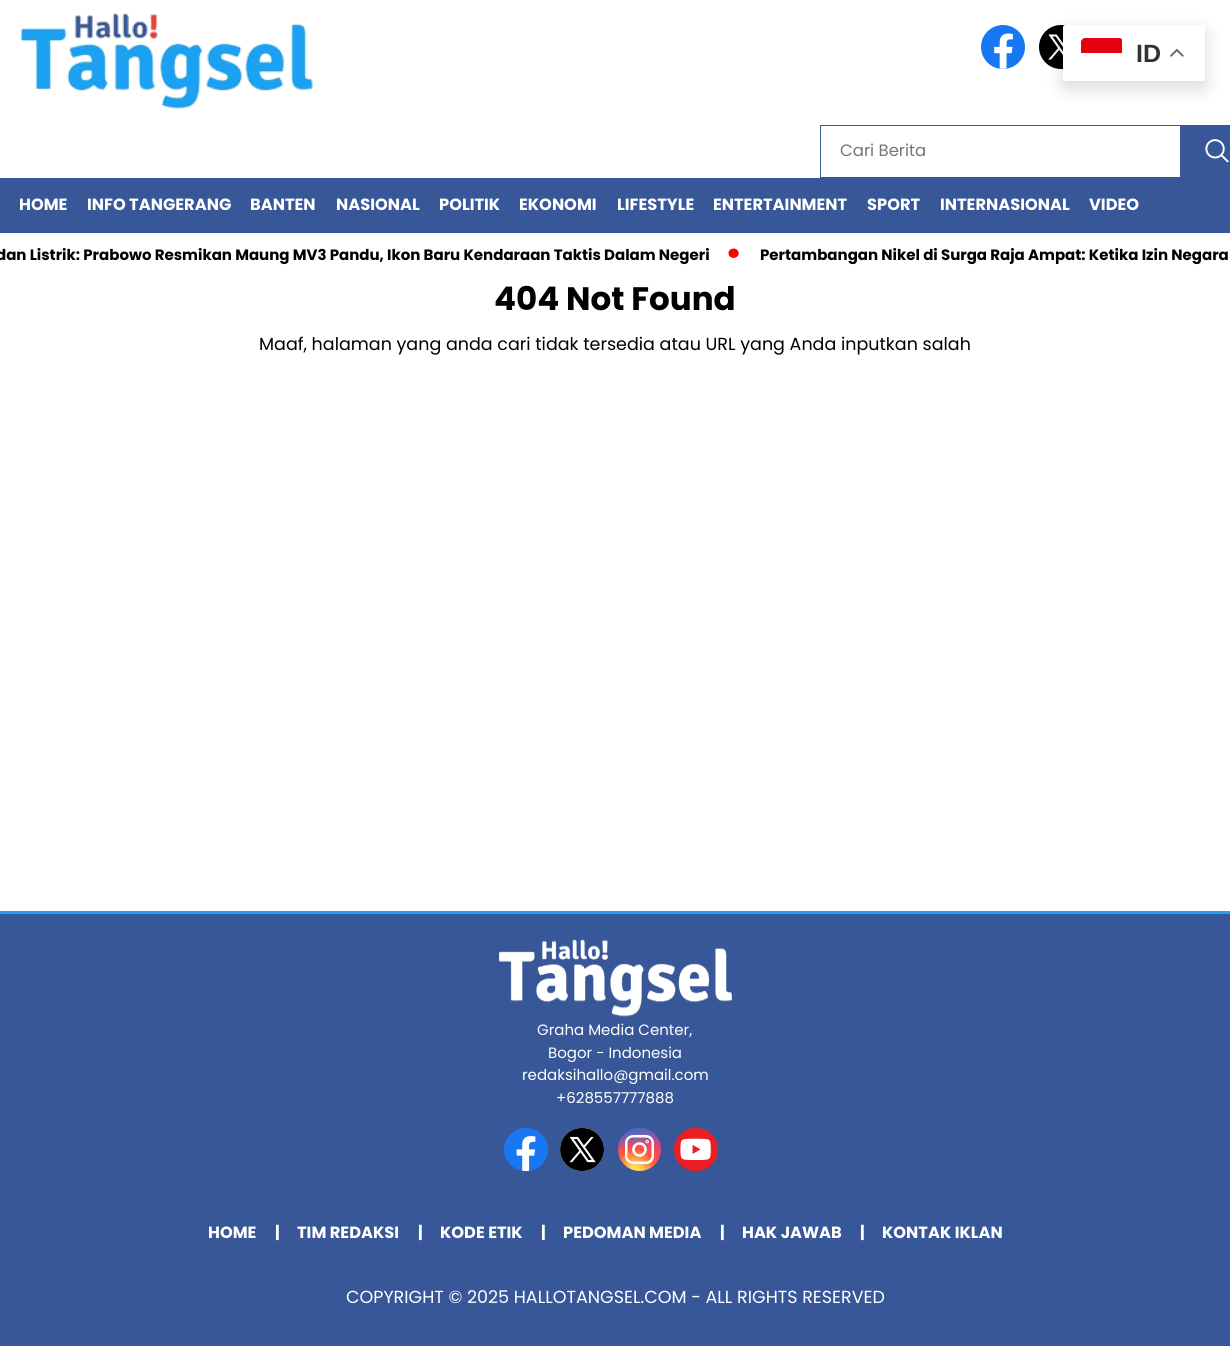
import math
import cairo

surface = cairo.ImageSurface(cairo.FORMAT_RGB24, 1230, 1346)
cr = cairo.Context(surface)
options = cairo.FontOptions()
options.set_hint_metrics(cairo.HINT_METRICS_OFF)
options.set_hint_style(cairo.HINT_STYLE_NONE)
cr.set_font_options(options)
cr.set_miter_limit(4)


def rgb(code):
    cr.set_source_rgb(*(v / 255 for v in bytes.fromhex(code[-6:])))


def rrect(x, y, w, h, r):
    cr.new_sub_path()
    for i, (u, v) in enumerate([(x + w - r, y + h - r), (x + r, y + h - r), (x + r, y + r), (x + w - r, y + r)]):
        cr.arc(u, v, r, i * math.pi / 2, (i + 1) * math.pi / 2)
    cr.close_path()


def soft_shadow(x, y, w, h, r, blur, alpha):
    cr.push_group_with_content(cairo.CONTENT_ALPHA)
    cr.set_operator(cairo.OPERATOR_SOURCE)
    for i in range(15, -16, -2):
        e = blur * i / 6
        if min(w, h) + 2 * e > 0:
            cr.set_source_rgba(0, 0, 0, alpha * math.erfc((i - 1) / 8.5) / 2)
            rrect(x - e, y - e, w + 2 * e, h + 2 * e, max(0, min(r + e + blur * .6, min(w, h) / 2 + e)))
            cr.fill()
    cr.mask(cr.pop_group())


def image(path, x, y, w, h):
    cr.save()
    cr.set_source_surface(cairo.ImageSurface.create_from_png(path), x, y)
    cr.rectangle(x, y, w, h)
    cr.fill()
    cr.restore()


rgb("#ffffff")
cr.paint()
image("img/4.png", 1039, 25, 27, 44)
rgb("#000000")
soft_shadow(1063, 31, 142, 57, 2.5, 9.5, 0.15)
rgb("#ffffff")
rrect(1063, 25, 142, 56, 2.5)
cr.fill()
cr.save()
rrect(1081, 38, 42, 31, 4)
cr.clip()
rgb("#e70011")
cr.new_path()
cr.move_to(1085, 38)
cr.line_to(1122, 38)
cr.line_to(1122, 54)
cr.line_to(1081, 54)
cr.line_to(1081, 42)
cr.curve_to(1081, 40, 1083, 38, 1085, 38)
cr.close_path()
cr.fill()
rgb("#ffffff")
cr.rectangle(1081, 53, 41, 15)
cr.fill()
cr.restore()
image("img/1.png", 1170, 48, 14, 9)
image("img/2.png", 21, 13, 292, 96)
image("img/3.png", 981, 25, 44, 44)
cr.rectangle(820.5, 125.5, 360, 52)
rgb("#385798")
cr.set_line_width(1)
cr.stroke()
cr.rectangle(1181, 125, 49, 53)
cr.fill()
image("img/5.png", 1205, 139, 24, 24)
for x, y, w, h, color in [
    (0, 178, 1230, 55, "#385798"),
    (0, 914, 1230, 432, "#385798"),
    (0, 911, 1230, 3, "#1ca2f3"),
]:
    rgb(color)
    cr.rectangle(x, y, w, h)
    cr.fill()
image("img/6.png", 499, 939, 233, 78)
image("img/7.png", 504, 1128, 44, 43)
image("img/8.png", 560, 1128, 44, 43)
gradient = cairo.RadialGradient(635, 1171, 0, 635, 1171, 44)
gradient.add_color_stop_rgba(0.1, 1, 0.867, 0.333, 1)
gradient.add_color_stop_rgba(0.5, 1, 0.329, 0.243, 1)
gradient.add_color_stop_rgba(1, 0.784, 0.216, 0.671, 1)
cr.set_source(gradient)
cr.arc(639.5, 1149.5, 21.5, 0, 2 * math.pi)
cr.fill()
gradient = cairo.LinearGradient(618, 1128, 626, 1171)
gradient.add_color_stop_rgba(0.1, 0.216, 0.443, 0.784, 1)
gradient.add_color_stop_rgba(0.5, 0.216, 0.443, 0.784, 0)
cr.set_source(gradient)
cr.arc(639.5, 1149.5, 21.5, 0, 2 * math.pi)
cr.fill()
rrect(626.25, 1136.25, 26.5, 26.5, 6.75)
rgb("#ffffff")
cr.set_line_width(2.5)
cr.stroke()
cr.arc(639.5, 1149.5, 6, 0, 2 * math.pi)
cr.set_line_width(2.6)
cr.stroke()
cr.arc(647.2, 1141.6, 0.5, 0, 2 * math.pi)
cr.stroke()
image("img/9.png", 674, 1128, 44, 43)
cr.select_font_face("Liberation Sans", cairo.FONT_SLANT_NORMAL, cairo.FONT_WEIGHT_BOLD)
cr.set_font_size(25)
rgb("#333333")
cr.move_to(1136, 62)
cr.show_text("ID")
cr.select_font_face("Poppins")
cr.set_font_size(16.5)
rgb("#757575")
cr.move_to(840, 156)
cr.show_text("Cari Berita")
cr.select_font_face("Poppins", cairo.FONT_SLANT_NORMAL, cairo.FONT_WEIGHT_BOLD)
cr.set_font_size(16.25)
rgb("#ffffff")
for x, y, s in [
    (19, 210, "HOME"),
    (87, 210, "INFO TANGERANG"),
    (250, 210, "BANTEN"),
    (336, 210, "NASIONAL"),
    (439, 210, "POLITIK"),
    (519, 210, "EKONOMI"),
    (617, 210, "LIFESTYLE"),
    (713, 210, "ENTERTAINMENT"),
    (867, 210, "SPORT"),
    (940, 210, "INTERNASIONAL"),
    (1089, 210, "VIDEO"),
]:
    cr.move_to(x, y)
    cr.show_text(s)
cr.set_font_size(15)
rgb("#000000")
cr.move_to(-4, 260)
cr.show_text("dan Listrik: Prabowo Resmikan Maung MV3 Pandu, Ikon Baru Kendaraan Taktis Dalam Negeri")
cr.set_font_size(50)
rgb("#ff0000")
cr.move_to(726, 269)
cr.show_text("·")
cr.set_font_size(15)
rgb("#000000")
cr.move_to(760, 260)
cr.show_text("Pertambangan Nikel di Surga Raja Ampat: Ketika Izin Negara")
cr.set_font_size(32.5)
cr.move_to(494, 310)
cr.show_text("404 Not Found")
cr.select_font_face("Poppins")
cr.set_font_size(17.5)
cr.move_to(259, 350)
cr.show_text("Maaf, halaman yang anda cari tidak tersedia atau URL yang Anda inputkan salah")
cr.set_font_size(15)
rgb("#ffffff")
for x, y, s in [
    (537, 1035, "Graha Media Center,"),
    (548, 1058, "Bogor - Indonesia"),
    (522, 1080, "redaksihallo@gmail.com"),
    (556, 1103, "+628557777888"),
]:
    cr.move_to(x, y)
    cr.show_text(s)
cr.select_font_face("Poppins", cairo.FONT_SLANT_NORMAL, cairo.FONT_WEIGHT_BOLD)
cr.set_font_size(16.25)
for x, y, s in [
    (208, 1238, "HOME"),
    (275, 1238, "|"),
    (297, 1238, "TIM REDAKSI"),
    (418, 1238, "|"),
    (440, 1238, "KODE ETIK"),
    (541, 1238, "|"),
    (563, 1238, "PEDOMAN MEDIA"),
    (720, 1238, "|"),
    (742, 1238, "HAK JAWAB"),
    (860, 1238, "|"),
    (882, 1238, "KONTAK IKLAN"),
]:
    cr.move_to(x, y)
    cr.show_text(s)
cr.select_font_face("Poppins")
cr.set_font_size(17.5)
cr.move_to(346, 1303)
cr.show_text("COPYRIGHT © 2025 HALLOTANGSEL.COM - ALL RIGHTS RESERVED")
surface.write_to_png("page.png")
